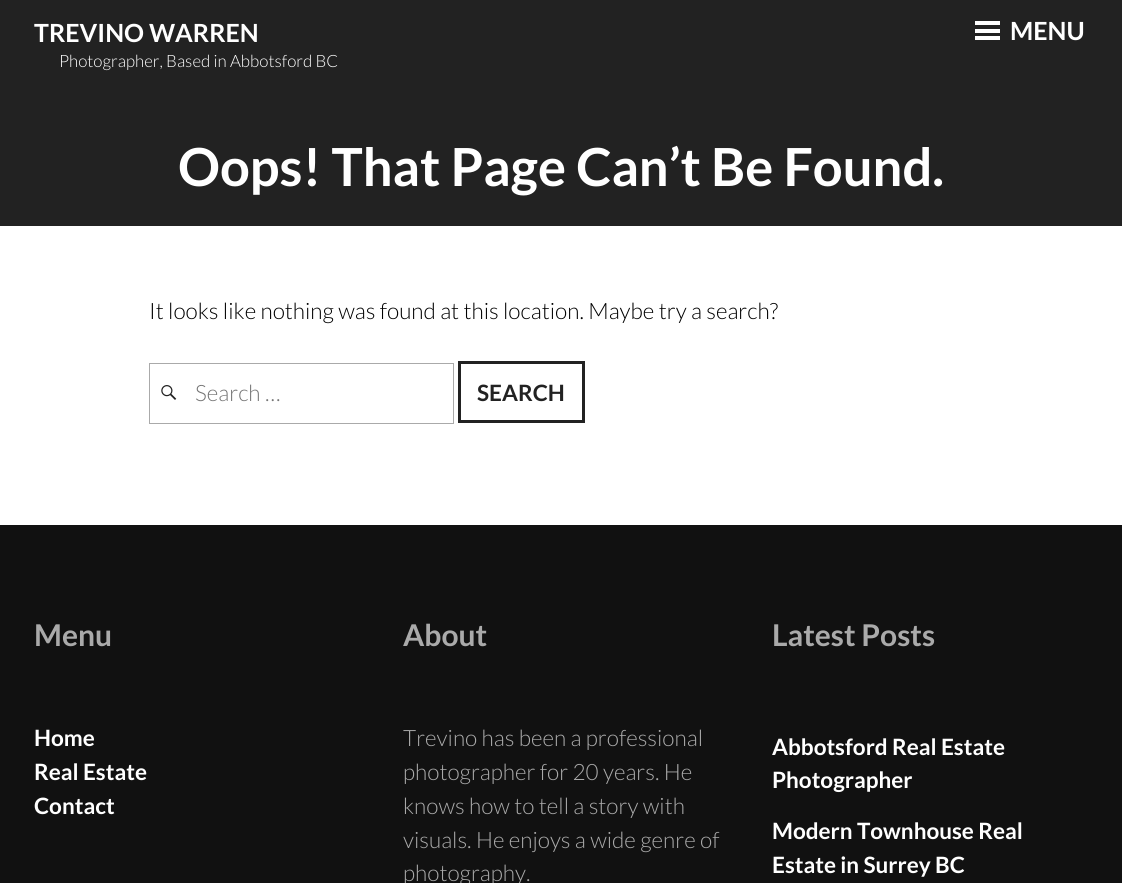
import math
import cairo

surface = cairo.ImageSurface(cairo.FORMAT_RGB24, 1122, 883)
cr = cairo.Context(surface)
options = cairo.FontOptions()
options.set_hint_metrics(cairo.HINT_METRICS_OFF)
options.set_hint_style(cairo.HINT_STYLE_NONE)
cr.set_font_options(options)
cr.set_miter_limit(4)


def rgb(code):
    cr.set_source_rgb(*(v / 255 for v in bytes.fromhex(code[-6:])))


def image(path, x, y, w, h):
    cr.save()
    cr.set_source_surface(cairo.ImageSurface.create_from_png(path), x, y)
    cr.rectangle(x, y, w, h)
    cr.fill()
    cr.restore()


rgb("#ffffff")
cr.paint()
for x, y, w, h, color in [
    (0, 0, 1122, 226, "#222222"),
    (975, 29, 25, 4, "#ffffff"),
    (975, 21, 25, 4, "#ffffff"),
    (975, 36, 25, 4, "#ffffff"),
]:
    rgb(color)
    cr.rectangle(x, y, w, h)
    cr.fill()
cr.rectangle(149.5, 363.5, 304, 60)
rgb("#aaaaaa")
cr.set_line_width(1)
cr.stroke()
image("img/1.png", 161, 385, 16, 15)
cr.rectangle(459.5, 362.5, 124, 59)
rgb("#222222")
cr.set_line_width(3)
cr.stroke()
rgb("#111111")
cr.rectangle(0, 525, 1122, 358)
cr.fill()
cr.select_font_face("Lato", cairo.FONT_SLANT_NORMAL, cairo.FONT_WEIGHT_BOLD)
cr.set_font_size(25)
rgb("#ffffff")
cr.move_to(34, 42)
cr.show_text("TREVINO WARREN")
cr.select_font_face("Lato Light")
cr.set_font_size(16.9)
cr.move_to(59, 67)
cr.show_text("Photographer, Based in Abbotsford BC")
cr.select_font_face("Lato", cairo.FONT_SLANT_NORMAL, cairo.FONT_WEIGHT_BOLD)
cr.set_font_size(25)
cr.move_to(1010, 40)
cr.show_text("MENU")
cr.set_font_size(52.5)
cr.move_to(178, 186)
cr.show_text("Oops! That Page Can’t Be Found.")
cr.select_font_face("Lato Light")
cr.set_font_size(22.5)
rgb("#000000")
cr.move_to(149, 319)
cr.show_text("It looks like nothing was found at this location. Maybe try a search?")
rgb("#757575")
cr.move_to(195, 401)
cr.show_text("Search …")
cr.select_font_face("Lato", cairo.FONT_SLANT_NORMAL, cairo.FONT_WEIGHT_BOLD)
rgb("#222222")
cr.move_to(477, 401)
cr.show_text("SEARCH")
cr.set_font_size(30)
rgb("#aaaaaa")
cr.move_to(34, 646)
cr.show_text("Menu")
cr.set_font_size(22.5)
rgb("#ffffff")
for x, y, s in [
    (34, 746, "Home"),
    (34, 780, "Real Estate"),
    (34, 814, "Contact"),
]:
    cr.move_to(x, y)
    cr.show_text(s)
cr.set_font_size(30)
rgb("#aaaaaa")
cr.move_to(403, 646)
cr.show_text("About")
cr.select_font_face("Lato Light")
cr.set_font_size(22.5)
for x, y, s in [
    (403, 746, "Trevino has been a professional"),
    (403, 780, "photographer for 20 years. He"),
    (403, 814, "knows how to tell a story with"),
    (403, 848, "visuals. He enjoys a wide genre of"),
    (403, 881, "photography."),
]:
    cr.move_to(x, y)
    cr.show_text(s)
cr.select_font_face("Lato", cairo.FONT_SLANT_NORMAL, cairo.FONT_WEIGHT_BOLD)
cr.set_font_size(30)
cr.move_to(772, 646)
cr.show_text("Latest Posts")
cr.set_font_size(22.5)
rgb("#ffffff")
for x, y, s in [
    (772, 755, "Abbotsford Real Estate"),
    (772, 788, "Photographer"),
    (772, 839, "Modern Townhouse Real"),
    (772, 873, "Estate in Surrey BC"),
]:
    cr.move_to(x, y)
    cr.show_text(s)
surface.write_to_png("page.png")
